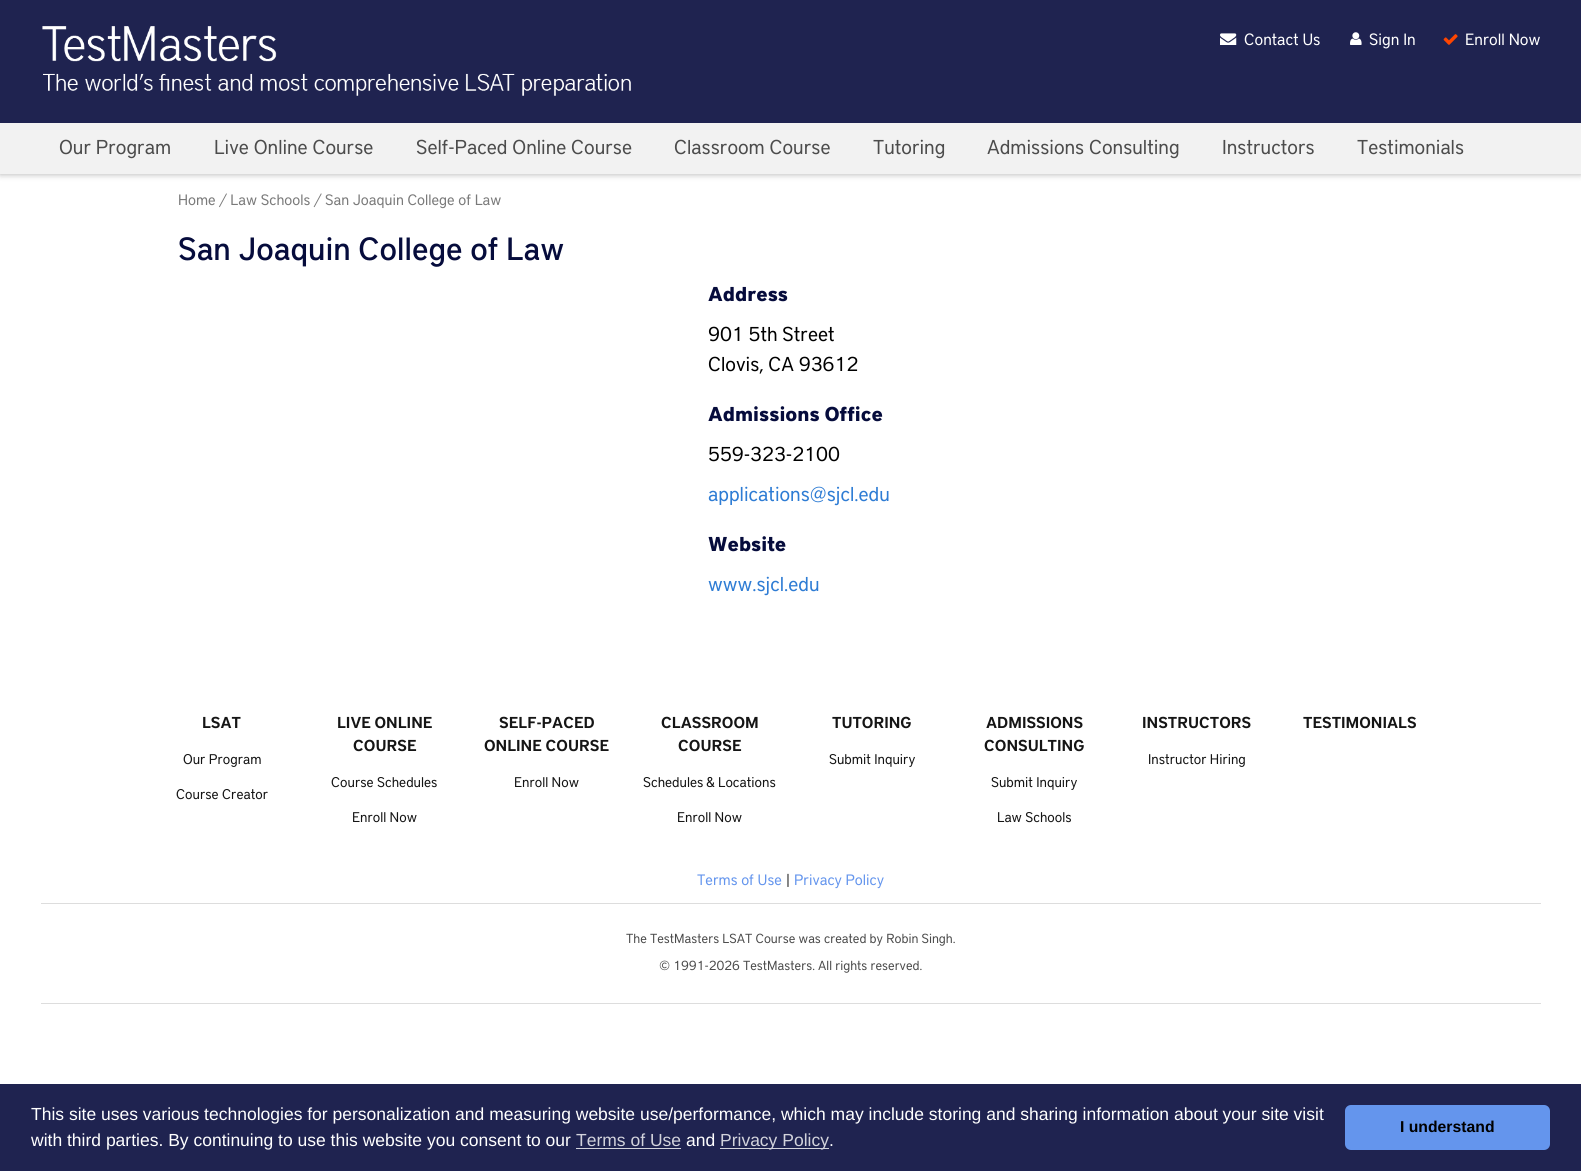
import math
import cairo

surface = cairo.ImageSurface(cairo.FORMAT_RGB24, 1581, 1171)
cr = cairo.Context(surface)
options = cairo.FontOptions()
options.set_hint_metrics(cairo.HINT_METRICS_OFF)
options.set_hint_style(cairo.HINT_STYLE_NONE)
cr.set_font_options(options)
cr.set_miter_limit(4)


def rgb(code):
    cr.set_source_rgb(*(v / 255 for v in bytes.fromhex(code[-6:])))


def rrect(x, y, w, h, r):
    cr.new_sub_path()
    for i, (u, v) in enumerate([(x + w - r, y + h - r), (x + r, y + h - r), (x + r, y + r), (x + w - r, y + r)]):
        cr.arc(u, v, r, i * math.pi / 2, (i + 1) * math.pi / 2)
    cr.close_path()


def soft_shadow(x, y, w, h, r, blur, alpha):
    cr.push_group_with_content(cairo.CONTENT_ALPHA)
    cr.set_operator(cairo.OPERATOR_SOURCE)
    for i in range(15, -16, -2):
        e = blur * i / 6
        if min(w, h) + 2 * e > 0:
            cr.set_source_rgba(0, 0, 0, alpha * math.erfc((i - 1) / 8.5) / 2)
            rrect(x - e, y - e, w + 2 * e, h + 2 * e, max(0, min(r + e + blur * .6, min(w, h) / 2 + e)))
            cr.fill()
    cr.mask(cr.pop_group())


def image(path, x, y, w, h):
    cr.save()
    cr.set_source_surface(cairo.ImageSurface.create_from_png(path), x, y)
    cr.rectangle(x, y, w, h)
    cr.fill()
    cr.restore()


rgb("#ffffff")
cr.paint()
rgb("#000000")
soft_shadow(0, 124, 1581, 51, 0, 3, 0.25)
rgb("#1f2350")
cr.rectangle(0, 0, 1581, 123)
cr.fill()
image("img/1.png", 42, 26, 589, 70)
image("img/2.png", 1220, 33, 17, 12)
image("img/3.png", 1350, 32, 12, 13)
image("img/4.png", 1443, 34, 15, 11)
for x, y, w, h, color in [
    (0, 123, 1581, 51, "#f2f2f2"),
    (41, 903, 1500, 1, "#dddddd"),
    (41, 1003, 1500, 1, "#dddddd"),
    (0, 1084, 1581, 87, "#1f2350"),
    (576, 1148, 105, 1, "#d2d3dc"),
    (720, 1148, 109, 1, "#d2d3dc"),
]:
    rgb(color)
    cr.rectangle(x, y, w, h)
    cr.fill()
rgb("#6495ed")
rrect(1345, 1105, 205, 45, 6)
cr.fill()
cr.select_font_face("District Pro")
cr.set_font_size(16.25)
rgb("#ffffff")
for x, y, s in [
    (1244, 45, "Contact Us"),
    (1369, 45, "Sign In"),
    (1465, 45, "Enroll Now"),
]:
    cr.move_to(x, y)
    cr.show_text(s)
cr.set_font_size(20)
rgb("#4c4c4c")
for x, y, s in [
    (59, 154, "Our Program"),
    (214, 154, "Live Online Course"),
    (416, 154, "Self-Paced Online Course"),
    (674, 154, "Classroom Course"),
    (873, 154, "Tutoring"),
    (987, 154, "Admissions Consulting"),
    (1222, 154, "Instructors"),
    (1357, 154, "Testimonials"),
]:
    cr.move_to(x, y)
    cr.show_text(s)
cr.set_font_size(15)
rgb("#7a7a7a")
cr.move_to(178, 205)
cr.show_text("Home / Law Schools / San Joaquin College of Law")
cr.select_font_face("District Pro Medium")
cr.set_font_size(32)
rgb("#060c3c")
cr.move_to(178, 260)
cr.show_text("San Joaquin College of Law")
cr.select_font_face("District Pro", cairo.FONT_SLANT_NORMAL, cairo.FONT_WEIGHT_BOLD)
cr.set_font_size(20)
cr.move_to(708, 301)
cr.show_text("Address")
cr.select_font_face("District Pro")
rgb("#000000")
cr.move_to(708, 341)
cr.show_text("901 5th Street")
cr.move_to(708, 371)
cr.show_text("Clovis, CA 93612")
cr.select_font_face("District Pro", cairo.FONT_SLANT_NORMAL, cairo.FONT_WEIGHT_BOLD)
rgb("#060c3c")
cr.move_to(708, 421)
cr.show_text("Admissions Office")
cr.select_font_face("District Pro")
rgb("#000000")
cr.move_to(708, 461)
cr.show_text("559-323-2100")
rgb("#2e7cd4")
cr.move_to(708, 501)
cr.show_text("applications@sjcl.edu")
cr.select_font_face("District Pro", cairo.FONT_SLANT_NORMAL, cairo.FONT_WEIGHT_BOLD)
rgb("#060c3c")
cr.move_to(708, 551)
cr.show_text("Website")
cr.select_font_face("District Pro")
rgb("#2e7cd4")
cr.move_to(708, 591)
cr.show_text("www.sjcl.edu")
cr.select_font_face("District Pro SemiBold")
cr.set_font_size(15.75)
rgb("#151515")
cr.move_to(202, 728)
cr.show_text("LSAT")
cr.select_font_face("District Pro")
cr.set_font_size(14)
cr.move_to(183, 764)
cr.show_text("Our Program")
cr.move_to(176, 799)
cr.show_text("Course Creator")
cr.select_font_face("District Pro SemiBold")
cr.set_font_size(15.75)
cr.move_to(337, 728)
cr.show_text("LIVE ONLINE")
cr.move_to(353, 751)
cr.show_text("COURSE")
cr.select_font_face("District Pro")
cr.set_font_size(14)
cr.move_to(331, 787)
cr.show_text("Course Schedules")
cr.move_to(352, 822)
cr.show_text("Enroll Now")
cr.select_font_face("District Pro SemiBold")
cr.set_font_size(15.75)
cr.move_to(499, 728)
cr.show_text("SELF-PACED")
cr.move_to(484, 751)
cr.show_text("ONLINE COURSE")
cr.select_font_face("District Pro")
cr.set_font_size(14)
cr.move_to(514, 787)
cr.show_text("Enroll Now")
cr.select_font_face("District Pro SemiBold")
cr.set_font_size(15.75)
cr.move_to(661, 728)
cr.show_text("CLASSROOM")
cr.move_to(678, 751)
cr.show_text("COURSE")
cr.select_font_face("District Pro")
cr.set_font_size(14)
cr.move_to(643, 787)
cr.show_text("Schedules")
cr.select_font_face("Roboto")
cr.move_to(706, 787)
cr.show_text("&")
cr.select_font_face("District Pro")
cr.move_to(718, 787)
cr.show_text("Locations")
cr.move_to(677, 822)
cr.show_text("Enroll Now")
cr.select_font_face("District Pro SemiBold")
cr.set_font_size(15.75)
cr.move_to(832, 728)
cr.show_text("TUTORING")
cr.select_font_face("District Pro")
cr.set_font_size(14)
cr.move_to(829, 764)
cr.show_text("Submit Inquiry")
cr.select_font_face("District Pro SemiBold")
cr.set_font_size(15.75)
cr.move_to(986, 728)
cr.show_text("ADMISSIONS")
cr.move_to(984, 751)
cr.show_text("CONSULTING")
cr.select_font_face("District Pro")
cr.set_font_size(14)
cr.move_to(991, 787)
cr.show_text("Submit Inquiry")
cr.move_to(997, 822)
cr.show_text("Law Schools")
cr.select_font_face("District Pro SemiBold")
cr.set_font_size(15.75)
cr.move_to(1142, 728)
cr.show_text("INSTRUCTORS")
cr.select_font_face("District Pro")
cr.set_font_size(14)
cr.move_to(1148, 764)
cr.show_text("Instructor Hiring")
cr.select_font_face("District Pro SemiBold")
cr.set_font_size(15.75)
cr.move_to(1303, 728)
cr.show_text("TESTIMONIALS")
cr.select_font_face("District Pro")
cr.set_font_size(15)
rgb("#6495ed")
cr.move_to(697, 885)
cr.show_text("Terms of Use")
rgb("#444444")
cr.move_to(786, 885)
cr.show_text("|")
rgb("#6495ed")
cr.move_to(794, 885)
cr.show_text("Privacy Policy")
cr.set_font_size(13.1)
rgb("#4c4c4c")
cr.move_to(626, 943)
cr.show_text("The TestMasters LSAT Course was created by Robin Singh.")
cr.move_to(659, 970)
cr.show_text("© 1991-2026 TestMasters. All rights reserved.")
cr.select_font_face("Liberation Sans")
cr.set_font_size(17.5)
rgb("#ffffff")
cr.move_to(31, 1120)
cr.show_text("This site uses various technologies for personalization and measuring website use/performance, which may include storing and sharing information about your site visit")
cr.move_to(31, 1146)
cr.show_text("with third parties. By continuing to use this website you consent to our")
rgb("#d2d3dc")
cr.move_to(576, 1146)
cr.show_text("Terms of Use")
rgb("#ffffff")
cr.move_to(686, 1146)
cr.show_text("and")
rgb("#d2d3dc")
cr.move_to(720, 1146)
cr.show_text("Privacy Policy")
rgb("#ffffff")
cr.move_to(829, 1146)
cr.show_text(".")
cr.select_font_face("Liberation Sans", cairo.FONT_SLANT_NORMAL, cairo.FONT_WEIGHT_BOLD)
cr.set_font_size(15.75)
rgb("#000000")
cr.move_to(1400, 1132)
cr.show_text("I understand")
surface.write_to_png("page.png")
